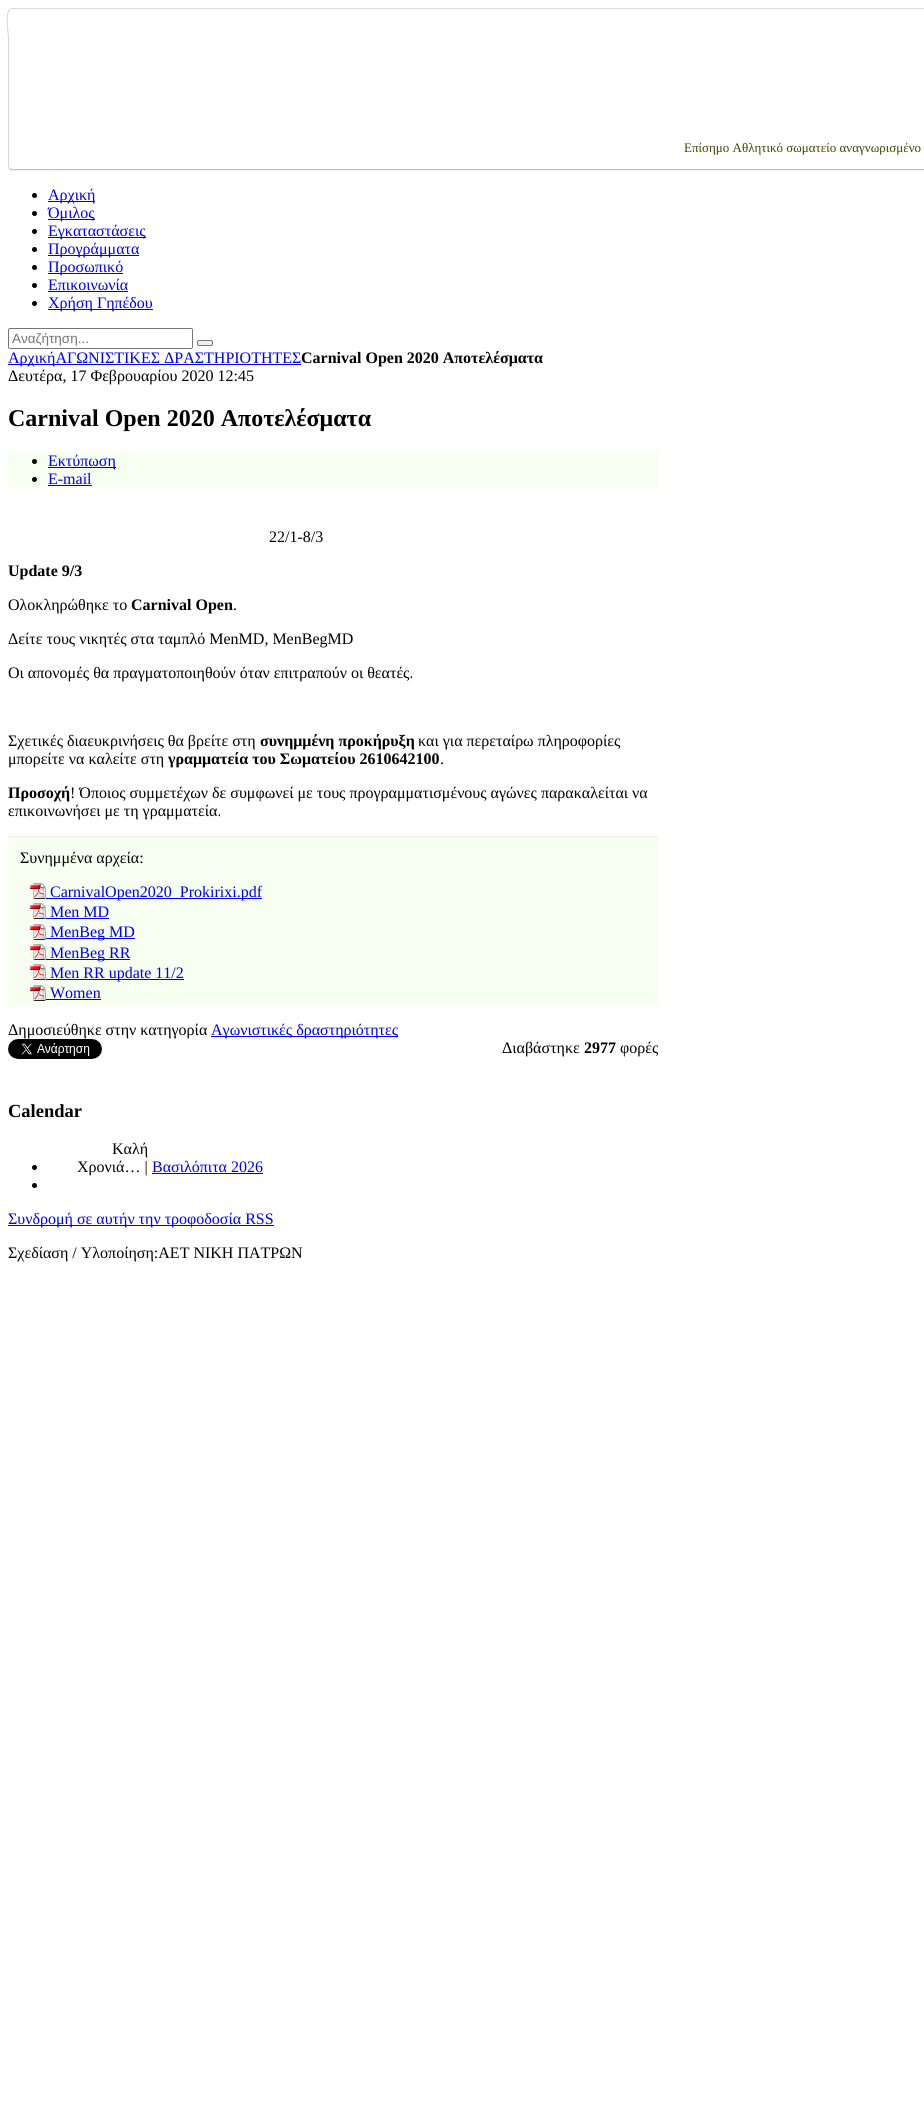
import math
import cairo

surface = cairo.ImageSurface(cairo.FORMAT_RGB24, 924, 2120)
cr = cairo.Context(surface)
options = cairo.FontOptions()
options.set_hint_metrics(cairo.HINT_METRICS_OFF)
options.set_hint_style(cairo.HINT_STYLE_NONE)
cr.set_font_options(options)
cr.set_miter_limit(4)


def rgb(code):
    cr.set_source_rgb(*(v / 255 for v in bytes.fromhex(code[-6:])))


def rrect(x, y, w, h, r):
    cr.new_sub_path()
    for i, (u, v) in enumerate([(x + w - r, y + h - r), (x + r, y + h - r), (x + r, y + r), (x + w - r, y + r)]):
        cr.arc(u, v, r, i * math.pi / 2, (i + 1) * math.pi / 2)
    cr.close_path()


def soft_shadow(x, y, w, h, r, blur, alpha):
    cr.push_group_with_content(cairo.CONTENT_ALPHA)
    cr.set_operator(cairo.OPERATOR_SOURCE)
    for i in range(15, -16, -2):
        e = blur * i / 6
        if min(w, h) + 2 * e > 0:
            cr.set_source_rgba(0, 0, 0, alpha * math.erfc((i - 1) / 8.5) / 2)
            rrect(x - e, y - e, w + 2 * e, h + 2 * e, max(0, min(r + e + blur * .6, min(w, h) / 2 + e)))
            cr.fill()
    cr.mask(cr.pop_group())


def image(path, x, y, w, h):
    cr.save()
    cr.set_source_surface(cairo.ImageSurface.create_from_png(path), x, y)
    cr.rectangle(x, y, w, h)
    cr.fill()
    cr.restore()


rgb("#ffffff")
cr.paint()
rgb("#000000")
soft_shadow(8, 9, 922, 162, 4, 0.5, 0.06)
rgb("#ffffff")
rrect(8, 8, 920, 162, 4)
cr.fill()
cr.new_path()
cr.move_to(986.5, 168.5)
cr.line_to(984, 169.5)
cr.line_to(12, 169.5)
cr.line_to(9.5, 168.5)
rgb("#bfbfbf")
cr.set_line_width(1)
cr.stroke()
cr.new_path()
cr.move_to(9.5, 168.5)
cr.line_to(8.5, 166)
cr.line_to(8.5, 37.5)
cr.curve_to(8.5, 33.5, 4, 8.5, 12, 8.5)
cr.line_to(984, 8.5)
cr.curve_to(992, 8.5, 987.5, 33.5, 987.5, 37.5)
cr.line_to(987.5, 166)
cr.line_to(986.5, 168.5)
rgb("#d9d9d9")
cr.stroke()
rgb("#000000")
cr.arc(34.5, 195.5, 2.5, 0, 2 * math.pi)
cr.fill()
rgb("#0000ee")
cr.rectangle(48, 201, 47, 1)
cr.fill()
rgb("#000000")
cr.arc(34.5, 213.5, 2.5, 0, 2 * math.pi)
cr.fill()
rgb("#0000ee")
cr.rectangle(48, 219, 47, 1)
cr.fill()
rgb("#000000")
cr.arc(34.5, 231.5, 2.5, 0, 2 * math.pi)
cr.fill()
rgb("#0000ee")
cr.rectangle(48, 237, 98, 1)
cr.fill()
rgb("#000000")
cr.arc(34.5, 249.5, 2.5, 0, 2 * math.pi)
cr.fill()
rgb("#0000ee")
cr.rectangle(48, 255, 91, 1)
cr.fill()
rgb("#000000")
cr.arc(34.5, 267.5, 2.5, 0, 2 * math.pi)
cr.fill()
rgb("#0000ee")
cr.rectangle(48, 273, 75, 1)
cr.fill()
rgb("#000000")
cr.arc(34.5, 285.5, 2.5, 0, 2 * math.pi)
cr.fill()
rgb("#0000ee")
cr.rectangle(48, 291, 80, 1)
cr.fill()
rgb("#000000")
cr.arc(34.5, 303.5, 2.5, 0, 2 * math.pi)
cr.fill()
rgb("#0000ee")
cr.rectangle(48, 309, 105, 1)
cr.fill()
rrect(8.5, 328.5, 184, 20, 1.5)
rgb("#767676")
cr.stroke()
rgb("#efefef")
rrect(197.5, 340.5, 15, 5, 1.5)
cr.fill_preserve()
rgb("#767676")
cr.stroke()
rgb("#0000ee")
cr.rectangle(8, 364, 293, 1)
cr.fill()
rgb("#f7fff0")
cr.rectangle(8, 452, 650, 36)
cr.fill()
rgb("#000000")
cr.arc(34.5, 461.5, 2.5, 0, 2 * math.pi)
cr.fill()
rgb("#0000ee")
cr.rectangle(48, 467, 68, 1)
cr.fill()
rgb("#000000")
cr.arc(34.5, 479.5, 2.5, 0, 2 * math.pi)
cr.fill()
rgb("#0000ee")
cr.rectangle(48, 485, 44, 1)
cr.fill()
rgb("#f7fff0")
cr.rectangle(8, 836, 650, 169)
cr.fill()
cr.new_path()
cr.move_to(8, 836.5)
cr.line_to(658, 836.5)
rgb("#dfdfdf")
cr.set_dash([1, 1])
cr.stroke()
image("img/1.png", 30, 883, 16, 16)
rgb("#0000ee")
cr.rectangle(46, 898, 216, 1)
cr.fill()
image("img/1.png", 30, 903, 16, 16)
cr.rectangle(46, 918, 63, 1)
cr.fill()
image("img/1.png", 30, 924, 16, 16)
cr.rectangle(46, 938, 89, 1)
cr.fill()
image("img/1.png", 30, 944, 16, 16)
cr.rectangle(46, 959, 84, 1)
cr.fill()
image("img/1.png", 30, 964, 16, 16)
cr.rectangle(46, 979, 138, 1)
cr.fill()
image("img/1.png", 30, 985, 16, 16)
cr.rectangle(46, 999, 55, 1)
cr.fill()
cr.rectangle(211, 1036, 187, 1)
cr.fill()
image("img/2.png", 8, 1039, 94, 20)
rgb("#000000")
cr.arc(34.5, 1167.5, 2.5, 0, 2 * math.pi)
cr.fill()
rgb("#0000ee")
cr.rectangle(152, 1173, 111, 1)
cr.fill()
rgb("#000000")
cr.arc(34.5, 1185.5, 2.5, 0, 2 * math.pi)
cr.fill()
rgb("#0000ee")
cr.rectangle(8, 1225, 266, 1)
cr.fill()
cr.select_font_face("Liberation Serif")
cr.set_font_size(13)
rgb("#444400")
cr.move_to(684, 152)
cr.show_text("Επίσημο Αθλητικό σωματείο αναγνωρισμένο")
cr.set_font_size(16)
rgb("#0000ee")
for x, y, s in [
    (48, 200, "Αρχική"),
    (48, 218, "Όμιλος"),
    (48, 236, "Εγκαταστάσεις"),
    (48, 254, "Προγράμματα"),
    (48, 272, "Προσωπικό"),
    (48, 290, "Επικοινωνία"),
    (48, 308, "Χρήση Γηπέδου"),
]:
    cr.move_to(x, y)
    cr.show_text(s)
cr.select_font_face("Liberation Sans")
cr.set_font_size(13.5)
rgb("#757575")
cr.move_to(12, 343)
cr.show_text("Αναζήτηση...")
cr.select_font_face("Liberation Serif")
cr.set_font_size(16)
rgb("#0000ee")
cr.move_to(8, 363)
cr.show_text("ΑρχικήΑΓΩΝΙΣΤΙΚΕΣ ΔΡΑΣΤΗΡΙΟΤΗΤΕΣ")
cr.select_font_face("Liberation Serif", cairo.FONT_SLANT_NORMAL, cairo.FONT_WEIGHT_BOLD)
rgb("#000000")
cr.move_to(301, 363)
cr.show_text("Carnival Open 2020 Αποτελέσματα")
cr.select_font_face("Liberation Serif")
cr.move_to(8, 381)
cr.show_text("Δευτέρα, 17 Φεβρουαρίου 2020 12:45")
cr.select_font_face("Liberation Serif", cairo.FONT_SLANT_NORMAL, cairo.FONT_WEIGHT_BOLD)
cr.set_font_size(24)
cr.move_to(8, 426)
cr.show_text("Carnival Open 2020 Αποτελέσματα")
cr.select_font_face("Liberation Serif")
cr.set_font_size(16)
rgb("#0000ee")
cr.move_to(48, 466)
cr.show_text("Εκτύπωση")
cr.move_to(48, 484)
cr.show_text("E-mail")
rgb("#000000")
cr.move_to(269, 542)
cr.show_text("22/1-8/3")
cr.select_font_face("Liberation Serif", cairo.FONT_SLANT_NORMAL, cairo.FONT_WEIGHT_BOLD)
cr.move_to(8, 576)
cr.show_text("Update 9/3")
cr.select_font_face("Liberation Serif")
cr.move_to(8, 610)
cr.show_text("Ολοκληρώθηκε το")
cr.select_font_face("Liberation Serif", cairo.FONT_SLANT_NORMAL, cairo.FONT_WEIGHT_BOLD)
cr.move_to(131, 610)
cr.show_text("Carnival Open")
cr.select_font_face("Liberation Serif")
for x, y, s in [
    (233, 610, "."),
    (8, 644, "Δείτε τους νικητές στα ταμπλό MenMD, MenBegMD"),
    (8, 678, "Οι απονομές θα πραγματοποιηθούν όταν επιτραπούν οι θεατές."),
    (8, 746, "Σχετικές διαευκρινήσεις θα βρείτε στη"),
]:
    cr.move_to(x, y)
    cr.show_text(s)
cr.select_font_face("Liberation Serif", cairo.FONT_SLANT_NORMAL, cairo.FONT_WEIGHT_BOLD)
cr.move_to(260, 746)
cr.show_text("συνημμένη προκήρυξη")
cr.select_font_face("Liberation Serif")
cr.move_to(418, 746)
cr.show_text("και για περεταίρω πληροφορίες")
cr.move_to(8, 764)
cr.show_text("μπορείτε να καλείτε στη")
cr.select_font_face("Liberation Serif", cairo.FONT_SLANT_NORMAL, cairo.FONT_WEIGHT_BOLD)
cr.move_to(168, 764)
cr.show_text("γραμματεία του Σωματείου 2610642100")
cr.select_font_face("Liberation Serif")
cr.move_to(440, 764)
cr.show_text(".")
cr.select_font_face("Liberation Serif", cairo.FONT_SLANT_NORMAL, cairo.FONT_WEIGHT_BOLD)
cr.move_to(8, 798)
cr.show_text("Προσοχή")
cr.select_font_face("Liberation Serif")
for x, y, s in [
    (70, 798, "! Όποιος συμμετέχων δε συμφωνεί με τους προγραμματισμένους αγώνες παρακαλείται να"),
    (8, 816, "επικοινωνήσει με τη γραμματεία."),
    (20, 863, "Συνημμένα αρχεία:"),
]:
    cr.move_to(x, y)
    cr.show_text(s)
rgb("#0000ee")
for x, y, s in [
    (50, 897, "CarnivalOpen2020_Prokirixi.pdf"),
    (50, 917, "Men MD"),
    (50, 937, "MenBeg MD"),
    (50, 958, "MenBeg RR"),
    (50, 978, "Men RR update 11/2"),
    (50, 998, "Women"),
]:
    cr.move_to(x, y)
    cr.show_text(s)
rgb("#000000")
cr.move_to(8, 1035)
cr.show_text("Δημοσιεύθηκε στην κατηγορία")
rgb("#0000ee")
cr.move_to(211, 1035)
cr.show_text("Αγωνιστικές δραστηριότητες")
rgb("#000000")
cr.move_to(502, 1053)
cr.show_text("Διαβάστηκε")
cr.select_font_face("Liberation Serif", cairo.FONT_SLANT_NORMAL, cairo.FONT_WEIGHT_BOLD)
cr.move_to(584, 1053)
cr.show_text("2977")
cr.select_font_face("Liberation Serif")
cr.move_to(620, 1053)
cr.show_text("φορές")
cr.select_font_face("Liberation Serif", cairo.FONT_SLANT_NORMAL, cairo.FONT_WEIGHT_BOLD)
cr.set_font_size(18.5)
cr.move_to(8, 1117)
cr.show_text("Calendar")
cr.select_font_face("Liberation Serif")
cr.set_font_size(16)
cr.move_to(112, 1154)
cr.show_text("Καλή")
cr.move_to(77, 1172)
cr.show_text("Χρονιά… |")
rgb("#0000ee")
cr.move_to(152, 1172)
cr.show_text("Βασιλόπιτα 2026")
cr.move_to(8, 1224)
cr.show_text("Συνδρομή σε αυτήν την τροφοδοσία RSS")
rgb("#000000")
cr.move_to(8, 1258)
cr.show_text("Σχεδίαση / Υλοποίηση:AET NIKH ΠΑΤΡΩΝ")
surface.write_to_png("page.png")
